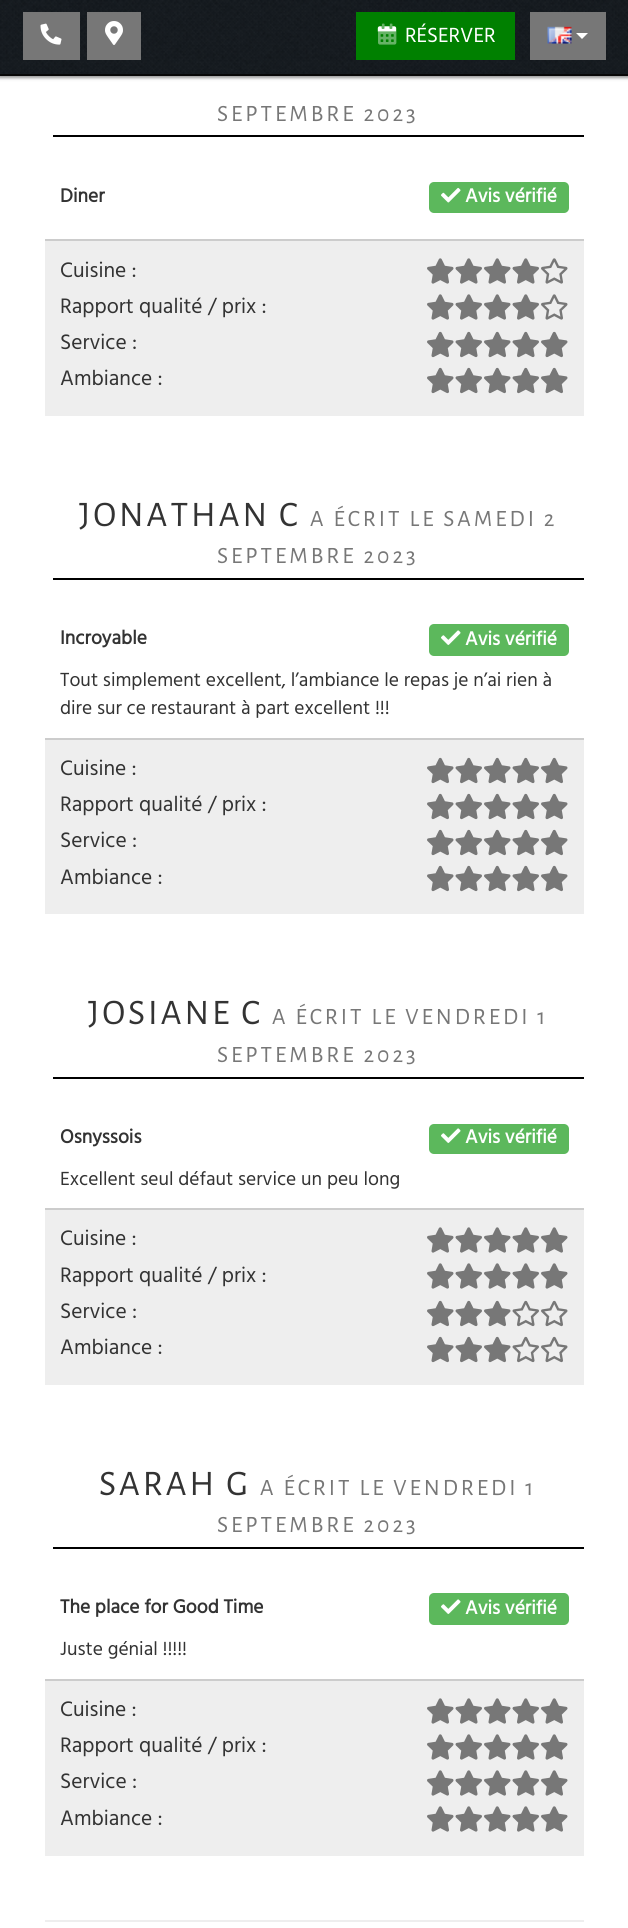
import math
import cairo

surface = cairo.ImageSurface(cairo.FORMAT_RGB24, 628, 1928)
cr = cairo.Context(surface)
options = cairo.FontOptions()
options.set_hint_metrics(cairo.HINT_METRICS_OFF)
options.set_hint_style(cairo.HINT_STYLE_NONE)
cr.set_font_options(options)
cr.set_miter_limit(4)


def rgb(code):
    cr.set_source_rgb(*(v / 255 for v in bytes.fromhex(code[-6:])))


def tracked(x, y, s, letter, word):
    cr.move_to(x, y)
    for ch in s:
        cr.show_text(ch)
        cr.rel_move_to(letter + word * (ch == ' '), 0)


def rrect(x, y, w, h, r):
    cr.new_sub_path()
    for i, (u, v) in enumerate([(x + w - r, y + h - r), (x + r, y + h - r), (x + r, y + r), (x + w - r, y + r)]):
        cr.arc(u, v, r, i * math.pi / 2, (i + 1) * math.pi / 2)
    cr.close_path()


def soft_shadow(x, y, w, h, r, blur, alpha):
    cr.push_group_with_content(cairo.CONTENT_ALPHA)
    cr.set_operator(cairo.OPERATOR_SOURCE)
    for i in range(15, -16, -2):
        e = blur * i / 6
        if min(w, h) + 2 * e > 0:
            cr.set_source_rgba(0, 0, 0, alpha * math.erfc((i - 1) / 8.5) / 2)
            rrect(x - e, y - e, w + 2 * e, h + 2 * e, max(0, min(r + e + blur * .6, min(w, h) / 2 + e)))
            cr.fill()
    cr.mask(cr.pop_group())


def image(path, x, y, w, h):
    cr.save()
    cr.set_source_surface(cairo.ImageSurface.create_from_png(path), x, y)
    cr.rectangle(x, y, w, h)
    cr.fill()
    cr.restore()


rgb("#ffffff")
cr.paint()
rgb("#000000")
soft_shadow(-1, 0, 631, 78, 0, 1.5, 0.4)
image("img/1.png", 0, 0, 628, 74)
rgb("#080808")
cr.rectangle(0, 74, 628, 2)
cr.fill()
rgb("#777777")
cr.rectangle(23, 12, 57, 48)
cr.fill()
image("img/2.png", 40, 23, 22, 22)
cr.rectangle(87, 12, 54, 48)
cr.fill()
image("img/3.png", 105, 21, 18, 24)
rgb("#008000")
cr.rectangle(356, 12, 159, 48)
cr.fill()
image("img/5.png", 377, 26, 20, 6)
image("img/4.png", 378, 23, 19, 22)
rgb("#777777")
cr.rectangle(530, 12, 76, 48)
cr.fill()
image("img/6.png", 547, 26, 25, 18)
rgb("#ffffff")
cr.new_path()
cr.move_to(576, 33)
cr.line_to(588, 33)
cr.line_to(582, 39)
cr.close_path()
cr.fill()
rgb("#000000")
cr.rectangle(53, 135, 531, 2)
cr.fill()
rgb("#5cb85c")
rrect(429, 182, 140, 31, 5)
cr.fill()
image("img/7.png", 441, 187, 20, 16)
rgb("#eeeeee")
cr.rectangle(45, 241, 539, 175)
cr.fill()
rgb("#cccccc")
cr.rectangle(45, 239, 539, 2)
cr.fill()
image("img/8.png", 427, 258, 27, 26)
image("img/9.png", 455, 258, 27, 26)
image("img/8.png", 484, 258, 27, 26)
image("img/9.png", 512, 258, 27, 26)
image("img/10.png", 541, 258, 27, 26)
image("img/8.png", 427, 294, 27, 26)
image("img/9.png", 455, 294, 27, 26)
image("img/8.png", 484, 294, 27, 26)
image("img/9.png", 512, 294, 27, 26)
image("img/10.png", 541, 294, 27, 26)
image("img/11.png", 427, 331, 27, 27)
image("img/12.png", 455, 331, 27, 27)
image("img/11.png", 484, 331, 27, 27)
image("img/12.png", 512, 331, 27, 27)
image("img/11.png", 541, 331, 27, 27)
image("img/11.png", 427, 367, 27, 27)
image("img/12.png", 455, 367, 27, 27)
image("img/11.png", 484, 367, 27, 27)
image("img/12.png", 512, 367, 27, 27)
image("img/11.png", 541, 367, 27, 27)
rgb("#000000")
cr.rectangle(53, 578, 531, 2)
cr.fill()
rgb("#5cb85c")
rrect(429, 624, 140, 32, 5)
cr.fill()
image("img/13.png", 441, 630, 20, 15)
rgb("#eeeeee")
cr.rectangle(45, 740, 539, 174)
cr.fill()
rgb("#cccccc")
cr.rectangle(45, 738, 539, 2)
cr.fill()
image("img/11.png", 427, 757, 27, 27)
image("img/12.png", 455, 757, 27, 27)
image("img/11.png", 484, 757, 27, 27)
image("img/12.png", 512, 757, 27, 27)
image("img/11.png", 541, 757, 27, 27)
image("img/11.png", 427, 793, 27, 27)
image("img/12.png", 455, 793, 27, 27)
image("img/11.png", 484, 793, 27, 27)
image("img/12.png", 512, 793, 27, 27)
image("img/11.png", 541, 793, 27, 27)
image("img/11.png", 427, 829, 27, 27)
image("img/12.png", 455, 829, 27, 27)
image("img/11.png", 484, 829, 27, 27)
image("img/12.png", 512, 829, 27, 27)
image("img/11.png", 541, 829, 27, 27)
image("img/11.png", 427, 865, 27, 27)
image("img/12.png", 455, 865, 27, 27)
image("img/11.png", 484, 865, 27, 27)
image("img/12.png", 512, 865, 27, 27)
image("img/11.png", 541, 865, 27, 27)
rgb("#000000")
cr.rectangle(53, 1077, 531, 2)
cr.fill()
rgb("#5cb85c")
rrect(429, 1124, 140, 30, 5)
cr.fill()
image("img/13.png", 441, 1128, 20, 15)
rgb("#eeeeee")
cr.rectangle(45, 1210, 539, 175)
cr.fill()
rgb("#cccccc")
cr.rectangle(45, 1208, 539, 2)
cr.fill()
image("img/8.png", 427, 1227, 27, 26)
image("img/9.png", 455, 1227, 27, 26)
image("img/8.png", 484, 1227, 27, 26)
image("img/9.png", 512, 1227, 27, 26)
image("img/8.png", 541, 1227, 27, 26)
image("img/8.png", 427, 1263, 27, 26)
image("img/9.png", 455, 1263, 27, 26)
image("img/8.png", 484, 1263, 27, 26)
image("img/9.png", 512, 1263, 27, 26)
image("img/8.png", 541, 1263, 27, 26)
image("img/11.png", 427, 1300, 27, 27)
image("img/12.png", 455, 1300, 27, 27)
image("img/11.png", 484, 1300, 27, 27)
image("img/14.png", 512, 1300, 27, 27)
image("img/15.png", 541, 1300, 27, 27)
image("img/11.png", 427, 1336, 27, 27)
image("img/12.png", 455, 1336, 27, 27)
image("img/11.png", 484, 1336, 27, 27)
image("img/14.png", 512, 1336, 27, 27)
image("img/15.png", 541, 1336, 27, 27)
rgb("#000000")
cr.rectangle(53, 1547, 531, 2)
cr.fill()
rgb("#5cb85c")
rrect(429, 1593, 140, 32, 5)
cr.fill()
image("img/13.png", 441, 1599, 20, 15)
rgb("#eeeeee")
cr.rectangle(45, 1681, 539, 175)
cr.fill()
rgb("#cccccc")
cr.rectangle(45, 1679, 539, 2)
cr.fill()
image("img/8.png", 427, 1698, 27, 26)
image("img/9.png", 455, 1698, 27, 26)
image("img/8.png", 484, 1698, 27, 26)
image("img/9.png", 512, 1698, 27, 26)
image("img/8.png", 541, 1698, 27, 26)
image("img/8.png", 427, 1734, 27, 26)
image("img/9.png", 455, 1734, 27, 26)
image("img/8.png", 484, 1734, 27, 26)
image("img/9.png", 512, 1734, 27, 26)
image("img/8.png", 541, 1734, 27, 26)
image("img/8.png", 427, 1770, 27, 26)
image("img/9.png", 455, 1770, 27, 26)
image("img/8.png", 484, 1770, 27, 26)
image("img/9.png", 512, 1770, 27, 26)
image("img/8.png", 541, 1770, 27, 26)
image("img/8.png", 427, 1806, 27, 26)
image("img/9.png", 455, 1806, 27, 26)
image("img/8.png", 484, 1806, 27, 26)
image("img/9.png", 512, 1806, 27, 26)
image("img/8.png", 541, 1806, 27, 26)
rgb("#eeeeee")
cr.rectangle(45, 1920, 539, 2)
cr.fill()
cr.select_font_face("Hind Madurai")
cr.set_font_size(21)
rgb("#ffffff")
cr.move_to(405, 42)
cr.show_text("RÉSERVER")
cr.select_font_face("Alegreya Sans")
cr.set_font_size(23.4)
rgb("#777777")
tracked(217, 121, "SEPTEMBRE 2023", 3, 0)
cr.select_font_face("Hind Madurai", cairo.FONT_SLANT_NORMAL, cairo.FONT_WEIGHT_BOLD)
cr.set_font_size(19.5)
rgb("#333333")
cr.move_to(60, 202)
cr.show_text("Diner")
rgb("#ffffff")
cr.move_to(465, 202)
cr.show_text("Avis vérifié")
cr.select_font_face("Hind Madurai")
cr.set_font_size(21.5)
rgb("#333333")
for x, y, s in [
    (60, 277, "Cuisine :"),
    (60, 313, "Rapport qualité / prix :"),
    (60, 349, "Service :"),
    (60, 385, "Ambiance :"),
]:
    cr.move_to(x, y)
    cr.show_text(s)
cr.select_font_face("Alegreya Sans")
cr.set_font_size(36)
tracked(79, 526, "JONATHAN C", 3, 0)
cr.set_font_size(23.4)
rgb("#777777")
tracked(310, 526, "A ÉCRIT LE SAMEDI 2", 3, 0)
tracked(217, 563, "SEPTEMBRE 2023", 3, 0)
cr.select_font_face("Hind Madurai", cairo.FONT_SLANT_NORMAL, cairo.FONT_WEIGHT_BOLD)
cr.set_font_size(19.5)
rgb("#333333")
cr.move_to(60, 644)
cr.show_text("Incroyable")
rgb("#ffffff")
cr.move_to(465, 645)
cr.show_text("Avis vérifié")
cr.select_font_face("Hind Madurai")
rgb("#333333")
cr.move_to(60, 686)
cr.show_text("Tout simplement excellent, l’ambiance le repas je n’ai rien à")
cr.move_to(60, 714)
cr.show_text("dire sur ce restaurant à part excellent !!!")
cr.set_font_size(21.5)
for x, y, s in [
    (60, 775, "Cuisine :"),
    (60, 811, "Rapport qualité / prix :"),
    (60, 847, "Service :"),
    (60, 884, "Ambiance :"),
]:
    cr.move_to(x, y)
    cr.show_text(s)
cr.select_font_face("Alegreya Sans")
cr.set_font_size(36)
tracked(88, 1024, "JOSIANE C", 3, 0)
cr.set_font_size(23.4)
rgb("#777777")
tracked(272, 1024, "A ÉCRIT LE VENDREDI 1", 3, 0)
tracked(217, 1062, "SEPTEMBRE 2023", 3, 0)
cr.select_font_face("Hind Madurai", cairo.FONT_SLANT_NORMAL, cairo.FONT_WEIGHT_BOLD)
cr.set_font_size(19.5)
rgb("#333333")
cr.move_to(60, 1143)
cr.show_text("Osnyssois")
rgb("#ffffff")
cr.move_to(465, 1143)
cr.show_text("Avis vérifié")
cr.select_font_face("Hind Madurai")
rgb("#333333")
cr.move_to(60, 1185)
cr.show_text("Excellent seul défaut service un peu long")
cr.set_font_size(21.5)
for x, y, s in [
    (60, 1245, "Cuisine :"),
    (60, 1282, "Rapport qualité / prix :"),
    (60, 1318, "Service :"),
    (60, 1354, "Ambiance :"),
]:
    cr.move_to(x, y)
    cr.show_text(s)
cr.select_font_face("Alegreya Sans")
cr.set_font_size(36)
tracked(99, 1495, "SARAH G", 3, 0)
cr.set_font_size(23.4)
rgb("#777777")
tracked(260, 1495, "A ÉCRIT LE VENDREDI 1", 3, 0)
tracked(217, 1532, "SEPTEMBRE 2023", 3, 0)
cr.select_font_face("Hind Madurai", cairo.FONT_SLANT_NORMAL, cairo.FONT_WEIGHT_BOLD)
cr.set_font_size(19.5)
rgb("#333333")
cr.move_to(60, 1613)
cr.show_text("The place for Good Time")
rgb("#ffffff")
cr.move_to(465, 1614)
cr.show_text("Avis vérifié")
cr.select_font_face("Hind Madurai")
rgb("#333333")
cr.move_to(60, 1655)
cr.show_text("Juste génial !!!!!")
cr.set_font_size(21.5)
for x, y, s in [
    (60, 1716, "Cuisine :"),
    (60, 1752, "Rapport qualité / prix :"),
    (60, 1788, "Service :"),
    (60, 1825, "Ambiance :"),
]:
    cr.move_to(x, y)
    cr.show_text(s)
surface.write_to_png("page.png")
